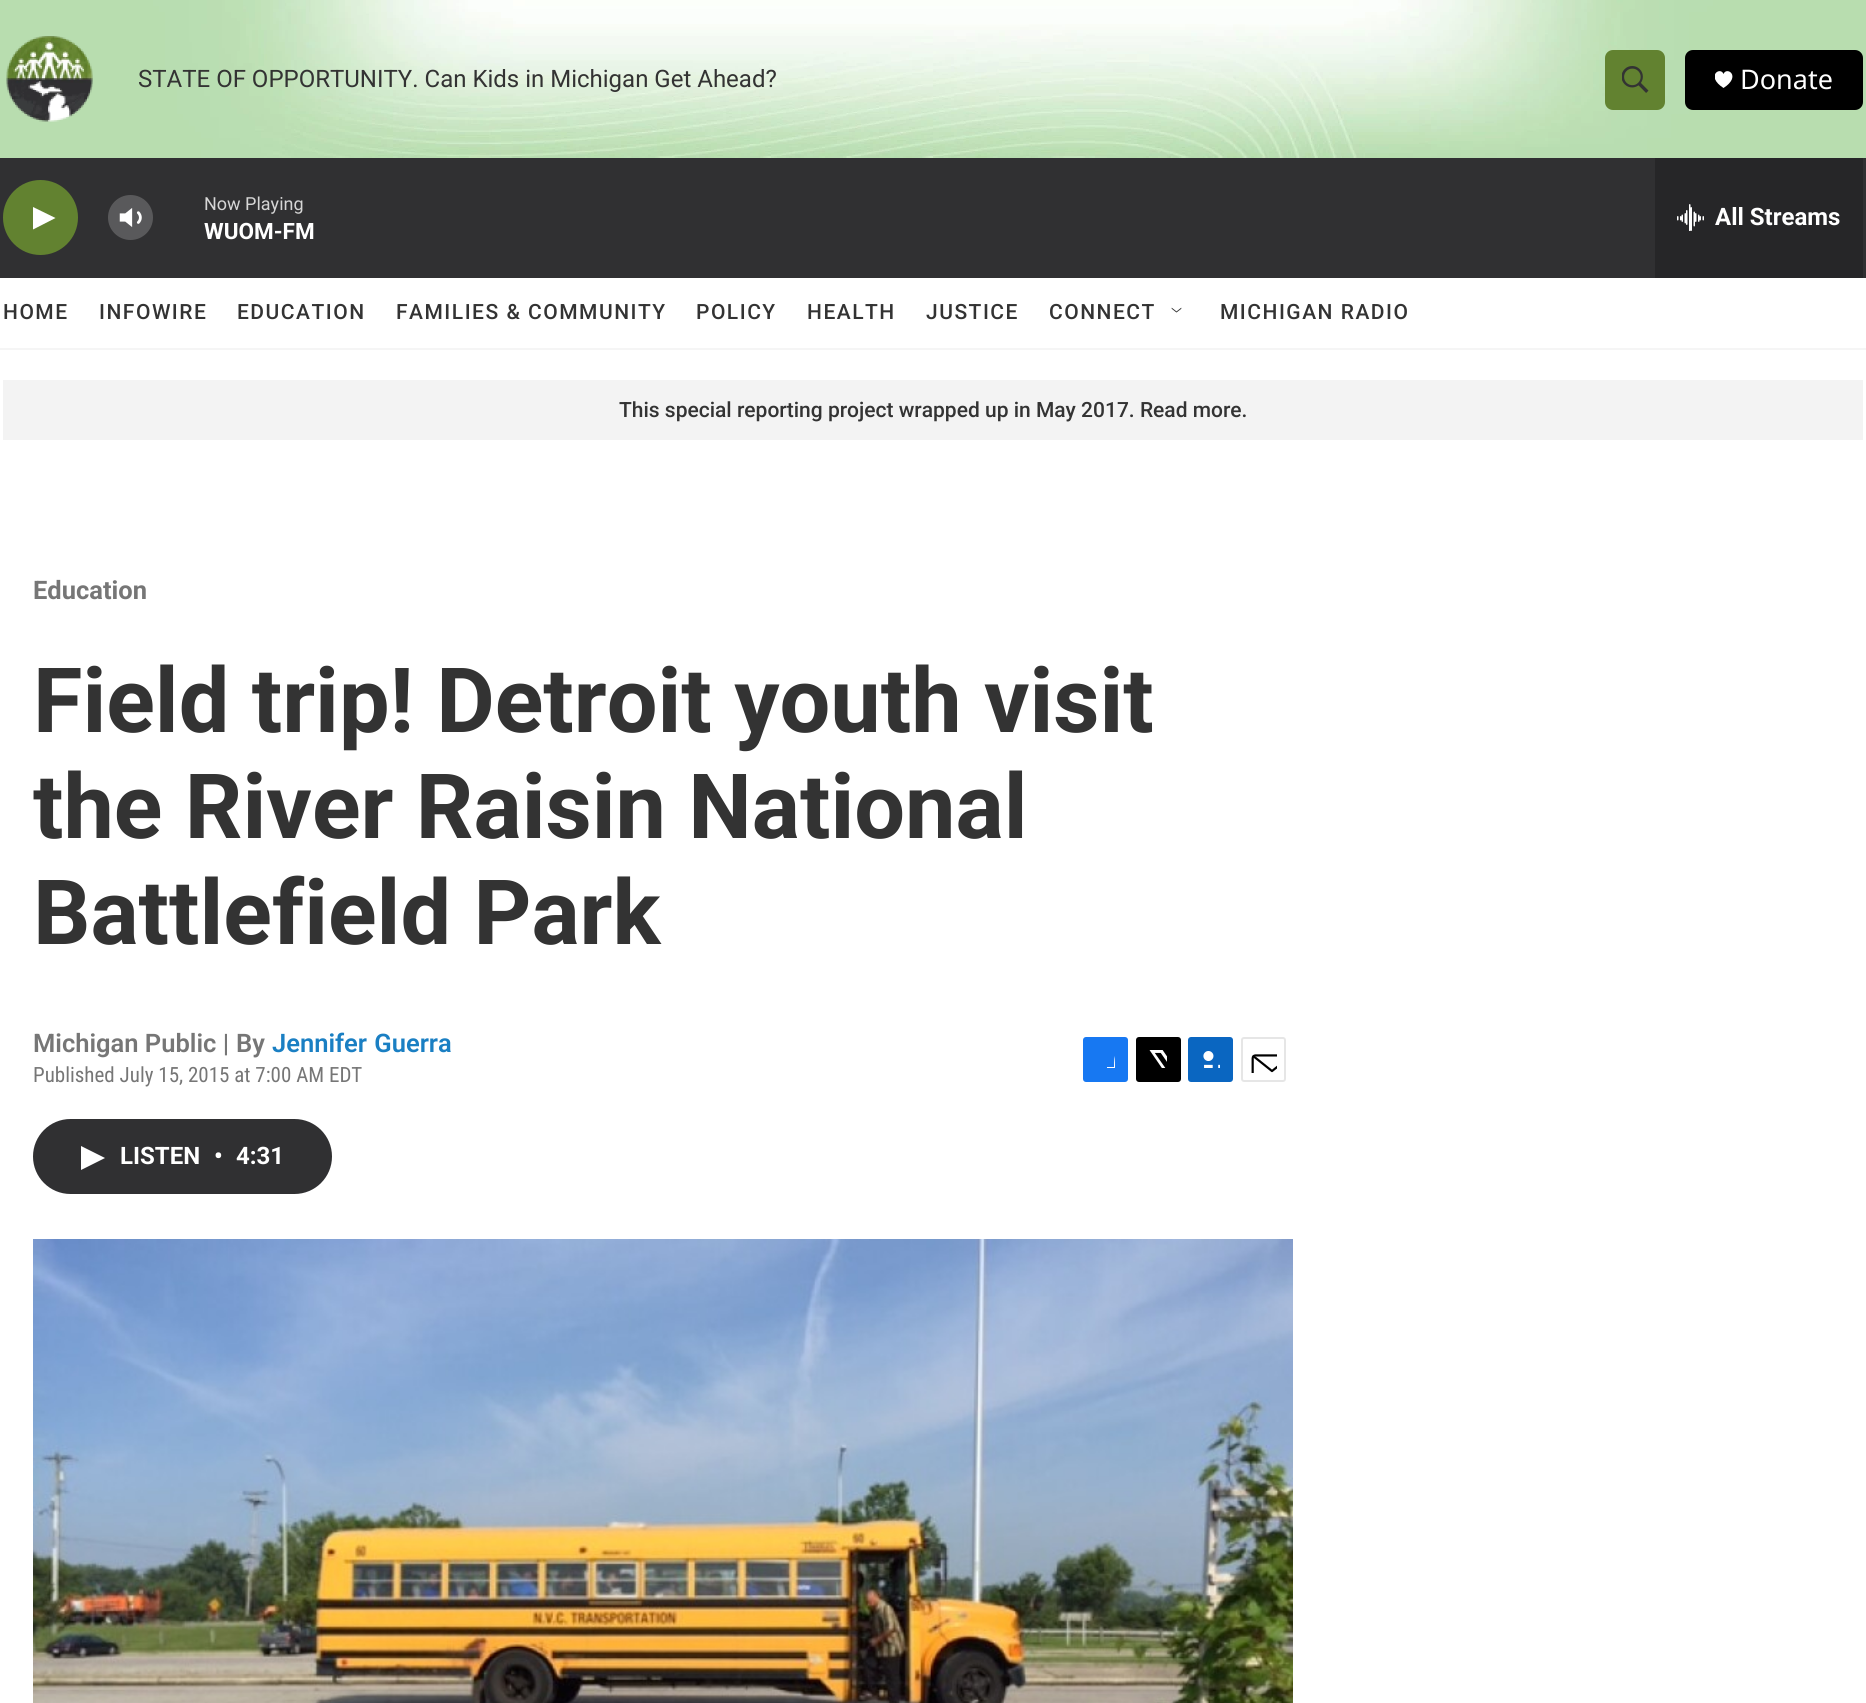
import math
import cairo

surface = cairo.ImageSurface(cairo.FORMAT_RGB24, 1866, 1703)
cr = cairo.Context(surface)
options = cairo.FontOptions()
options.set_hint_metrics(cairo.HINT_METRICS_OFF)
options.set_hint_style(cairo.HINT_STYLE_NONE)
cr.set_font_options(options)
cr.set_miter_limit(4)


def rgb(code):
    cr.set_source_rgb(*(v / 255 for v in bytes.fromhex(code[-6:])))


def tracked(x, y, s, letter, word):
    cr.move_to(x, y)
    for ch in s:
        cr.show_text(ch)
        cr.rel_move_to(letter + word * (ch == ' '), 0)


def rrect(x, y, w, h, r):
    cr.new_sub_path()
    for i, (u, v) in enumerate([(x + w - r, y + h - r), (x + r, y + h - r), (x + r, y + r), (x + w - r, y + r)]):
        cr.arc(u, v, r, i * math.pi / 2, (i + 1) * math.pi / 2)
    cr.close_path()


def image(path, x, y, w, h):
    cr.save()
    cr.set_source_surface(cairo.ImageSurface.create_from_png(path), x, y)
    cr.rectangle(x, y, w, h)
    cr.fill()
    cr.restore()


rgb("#ffffff")
cr.paint()
rgb("#f5f5f5")
cr.rectangle(0, 348, 1866, 2)
cr.fill()
image("img/1.png", 0, 0, 1866, 158)
image("img/2.png", 6, 36, 87, 86)
rgb("#628230")
rrect(1605, 50, 60, 60, 8)
cr.fill()
image("img/3.png", 1622, 66, 27, 27)
rgb("#000000")
rrect(1685, 50, 178, 60, 8)
cr.fill()
cr.save()
cr.rectangle(1715, 71, 18, 18)
cr.clip()
rgb("#ffffff")
cr.new_path()
cr.move_to(1723.5, 74)
cr.curve_to(1720.5, 66, 1705, 76, 1723.5, 88)
cr.curve_to(1742, 76, 1726.5, 66, 1723.5, 74)
cr.close_path()
cr.fill()
cr.restore()
rgb("#303032")
cr.rectangle(0, 158, 1866, 120)
cr.fill()
rgb("#628230")
cr.arc(40.5, 217.5, 37.5, 0, 2 * math.pi)
cr.fill()
rgb("#ffffff")
cr.new_path()
cr.move_to(33, 207)
cr.line_to(55.5, 218)
cr.line_to(33, 229.5)
cr.close_path()
cr.fill()
image("img/4.png", 119, 208, 23, 19)
cr.set_source_rgba(1, 1, 1, 0.2)
cr.arc(130.5, 217.5, 22.5, 0, 2 * math.pi)
cr.fill()
rgb("#262628")
cr.rectangle(1655, 158, 208, 120)
cr.fill()
image("img/5.png", 1677, 204, 27, 27)
image("img/6.png", 1171, 307, 11, 6)
rgb("#f3f3f3")
cr.rectangle(3, 380, 1860, 60)
cr.fill()
rgb("#1778f2")
rrect(1083, 1037, 45, 45, 3)
cr.fill()
cr.save()
cr.rectangle(1097, 1050, 18, 18)
cr.clip()
rgb("#ffffff")
cr.new_path()
cr.move_to(1121, 1082)
cr.line_to(1114, 1082)
cr.line_to(1114, 1074)
cr.line_to(1107, 1074)
cr.line_to(1107, 1067)
cr.line_to(1114, 1067)
cr.curve_to(1114, 1054.5, 1115, 1049, 1128, 1051)
cr.line_to(1128, 1058)
cr.curve_to(1119.5, 1058, 1121, 1059.5, 1121, 1067)
cr.line_to(1128, 1067)
cr.line_to(1127, 1074)
cr.line_to(1121, 1074)
cr.close_path()
cr.fill()
cr.restore()
rgb("#000000")
rrect(1136, 1037, 45, 45, 3)
cr.fill()
image("img/7.png", 1149, 1050, 18, 18)
rgb("#0a66c1")
rrect(1188, 1037, 45, 45, 3)
cr.fill()
image("img/8.png", 1203, 1051, 17, 17)
rrect(1242, 1038, 43, 43, 2)
rgb("#e6e6e6")
cr.stroke()
image("img/9.png", 1251, 1054, 26, 19)
rgb("#303032")
rrect(33, 1119, 299, 75, 37.5)
cr.fill()
rgb("#ffffff")
cr.new_path()
cr.move_to(81, 1146)
cr.line_to(105, 1158)
cr.line_to(81, 1170)
cr.close_path()
cr.fill()
image("img/10.png", 33, 1239, 1260, 464)
cr.select_font_face("Roboto")
cr.set_font_size(24)
rgb("#333333")
cr.move_to(138, 87)
cr.show_text("STATE OF OPPORTUNITY. Can Kids in Michigan Get Ahead?")
cr.select_font_face("Noto Sans")
cr.set_font_size(27)
rgb("#ffffff")
cr.move_to(1740, 89)
cr.show_text("Donate")
cr.select_font_face("Roboto")
cr.set_font_size(18)
rgb("#d6d6d6")
cr.move_to(204, 210)
cr.show_text("Now Playing")
cr.select_font_face("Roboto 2", cairo.FONT_SLANT_NORMAL, cairo.FONT_WEIGHT_BOLD)
cr.set_font_size(22.5)
rgb("#ffffff")
cr.move_to(204, 239)
cr.show_text("WUOM-FM")
cr.set_font_size(24)
cr.move_to(1715, 225)
cr.show_text("All Streams")
cr.select_font_face("Roboto Medium")
cr.set_font_size(21)
rgb("#333333")
for x, y, s in [
    (3, 319, "HOME"),
    (99, 319, "INFOWIRE"),
    (237, 319, "EDUCATION"),
    (396, 319, "FAMILIES & COMMUNITY"),
    (696, 319, "POLICY"),
    (807, 319, "HEALTH"),
    (926, 319, "JUSTICE"),
    (1049, 319, "CONNECT"),
    (1220, 319, "MICHIGAN RADIO"),
]:
    tracked(x, y, s, 1.5, 0)
cr.move_to(619, 417)
cr.show_text("This special reporting project wrapped up in May 2017. Read more.")
cr.select_font_face("Roboto", cairo.FONT_SLANT_NORMAL, cairo.FONT_WEIGHT_BOLD)
cr.set_font_size(25.5)
rgb("#767676")
cr.move_to(33, 599)
cr.show_text("Education")
cr.set_font_size(90)
rgb("#333333")
for x, y, s in [
    (33, 732, "Field trip! Detroit youth visit"),
    (33, 838, "the River Raisin National"),
    (33, 944, "Battlefield Park"),
]:
    cr.move_to(x, y)
    cr.show_text(s)
cr.select_font_face("Roboto SemiBold")
cr.set_font_size(25.5)
rgb("#767676")
cr.move_to(33, 1052)
cr.show_text("Michigan Public |")
cr.move_to(236, 1052)
cr.show_text("By")
rgb("#1a7fc3")
tracked(272, 1052, "Jennifer Guerra", 0, 1)
cr.select_font_face("Roboto Condensed")
cr.set_font_size(21)
rgb("#767676")
cr.move_to(33, 1082)
cr.show_text("Published July 15, 2015 at 7:00 AM EDT")
cr.select_font_face("Roboto 2", cairo.FONT_SLANT_NORMAL, cairo.FONT_WEIGHT_BOLD)
cr.set_font_size(24)
rgb("#ffffff")
for x, y, s in [
    (120, 1164, "LISTEN"),
    (214, 1164, "•"),
    (236, 1164, "4:31"),
]:
    cr.move_to(x, y)
    cr.show_text(s)
surface.write_to_png("page.png")
